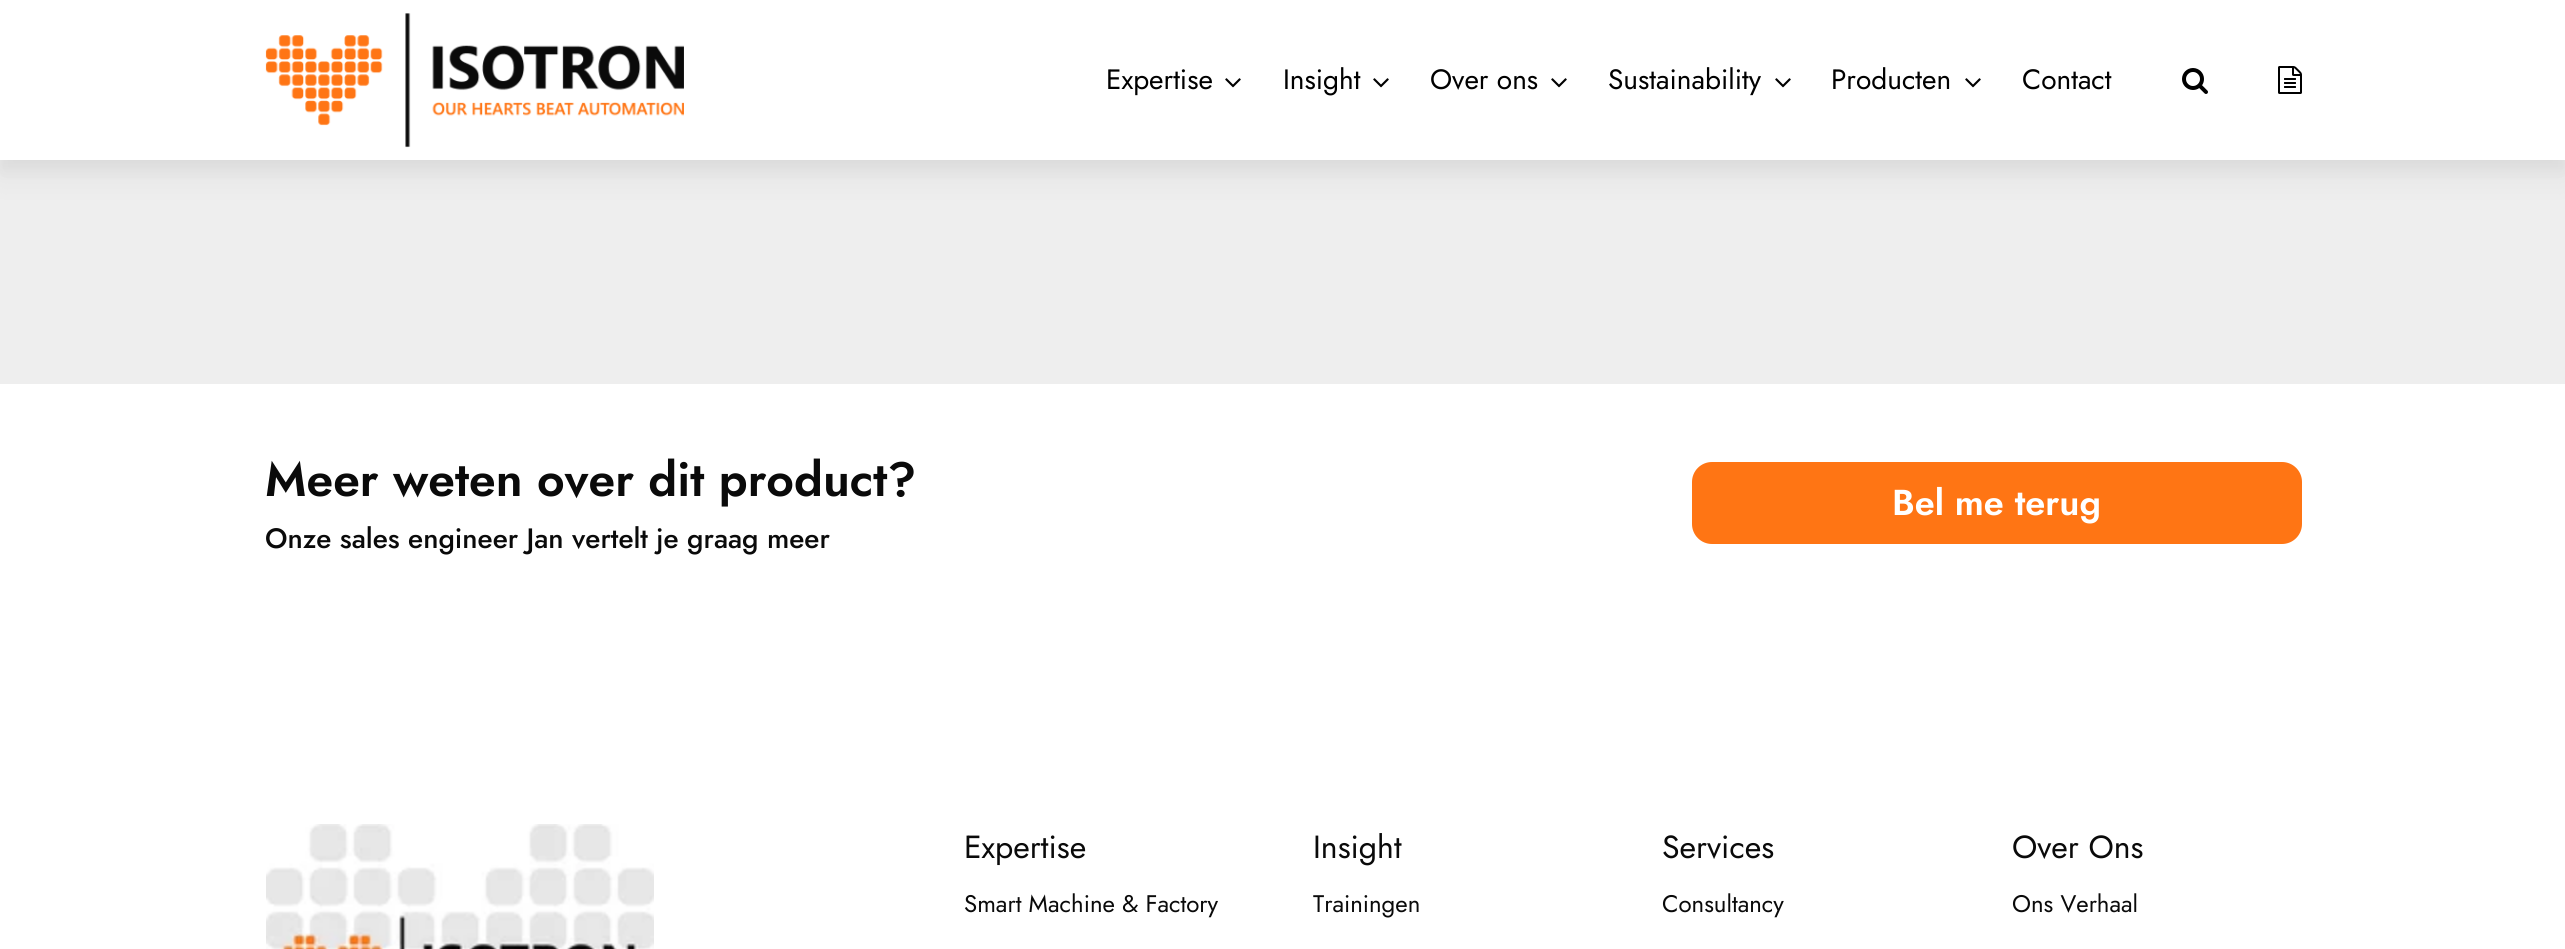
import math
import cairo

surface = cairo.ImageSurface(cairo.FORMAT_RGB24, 2565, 949)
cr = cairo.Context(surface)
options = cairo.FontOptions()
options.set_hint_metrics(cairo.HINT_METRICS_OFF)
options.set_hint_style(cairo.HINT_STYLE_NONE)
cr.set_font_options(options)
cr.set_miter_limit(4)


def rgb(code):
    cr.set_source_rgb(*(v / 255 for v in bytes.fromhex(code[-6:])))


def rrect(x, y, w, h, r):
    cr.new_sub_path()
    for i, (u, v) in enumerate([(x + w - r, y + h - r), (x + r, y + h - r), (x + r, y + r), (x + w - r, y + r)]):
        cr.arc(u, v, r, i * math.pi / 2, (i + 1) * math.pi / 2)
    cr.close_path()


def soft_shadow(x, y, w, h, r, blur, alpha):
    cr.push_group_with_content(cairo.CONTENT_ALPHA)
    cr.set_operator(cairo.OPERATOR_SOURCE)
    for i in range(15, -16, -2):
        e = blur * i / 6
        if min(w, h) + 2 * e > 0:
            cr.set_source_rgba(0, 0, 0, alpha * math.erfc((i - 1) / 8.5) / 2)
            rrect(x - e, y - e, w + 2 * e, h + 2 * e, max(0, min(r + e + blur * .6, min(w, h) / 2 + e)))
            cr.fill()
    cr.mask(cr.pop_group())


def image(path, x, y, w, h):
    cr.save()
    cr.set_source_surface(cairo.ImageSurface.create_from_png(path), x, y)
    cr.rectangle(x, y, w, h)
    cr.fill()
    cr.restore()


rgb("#eeeeee")
cr.paint()
rgb("#0a0a0a")
soft_shadow(0, 8, 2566, 160, 0, 8, 0.05)
soft_shadow(0, 16, 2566, 160, 0, 16, 0.05)
rgb("#ffffff")
cr.rectangle(0, 0, 2565, 160)
cr.fill()
image("img/1.png", 265, 13, 419, 135)
image("img/2.png", 1225, 78, 16, 10)
image("img/2.png", 1373, 78, 16, 10)
image("img/2.png", 1551, 78, 16, 10)
image("img/2.png", 1775, 78, 16, 10)
image("img/2.png", 1965, 78, 16, 10)
image("img/3.png", 2182, 68, 26, 26)
image("img/4.png", 2278, 66, 24, 28)
cr.rectangle(0, 384, 2565, 565)
cr.fill()
rgb("#ff7514")
rrect(1692, 462, 610, 82, 20)
cr.fill()
image("img/5.png", 266, 824, 388, 125)
cr.select_font_face("Jost")
cr.set_font_size(28)
rgb("#000000")
for x, y, s in [
    (1106, 89, "Expertise"),
    (1283, 89, "Insight"),
    (1430, 89, "Over ons"),
    (1608, 89, "Sustainability"),
    (1831, 89, "Producten"),
    (2022, 89, "Contact"),
]:
    cr.move_to(x, y)
    cr.show_text(s)
cr.select_font_face("Jost SemiBold")
cr.set_font_size(48)
rgb("#0a0a0a")
cr.move_to(265, 496)
cr.show_text("Meer weten over dit product?")
cr.select_font_face("Jost Medium")
cr.set_font_size(28)
cr.move_to(265, 548)
cr.show_text("Onze sales engineer Jan vertelt je graag meer")
cr.select_font_face("Jost SemiBold")
cr.set_font_size(36)
rgb("#ffffff")
cr.move_to(1892, 515)
cr.show_text("Bel me terug")
cr.select_font_face("Jost")
cr.set_font_size(32)
rgb("#0a0a0a")
cr.move_to(964, 858)
cr.show_text("Expertise")
cr.set_font_size(24)
cr.move_to(964, 912)
cr.show_text("Smart Machine & Factory")
cr.set_font_size(32)
cr.move_to(1313, 858)
cr.show_text("Insight")
cr.set_font_size(24)
cr.move_to(1313, 912)
cr.show_text("Trainingen")
cr.set_font_size(32)
cr.move_to(1662, 858)
cr.show_text("Services")
cr.set_font_size(24)
cr.move_to(1662, 912)
cr.show_text("Consultancy")
cr.set_font_size(32)
cr.move_to(2012, 858)
cr.show_text("Over Ons")
cr.set_font_size(24)
cr.move_to(2012, 912)
cr.show_text("Ons Verhaal")
surface.write_to_png("page.png")
